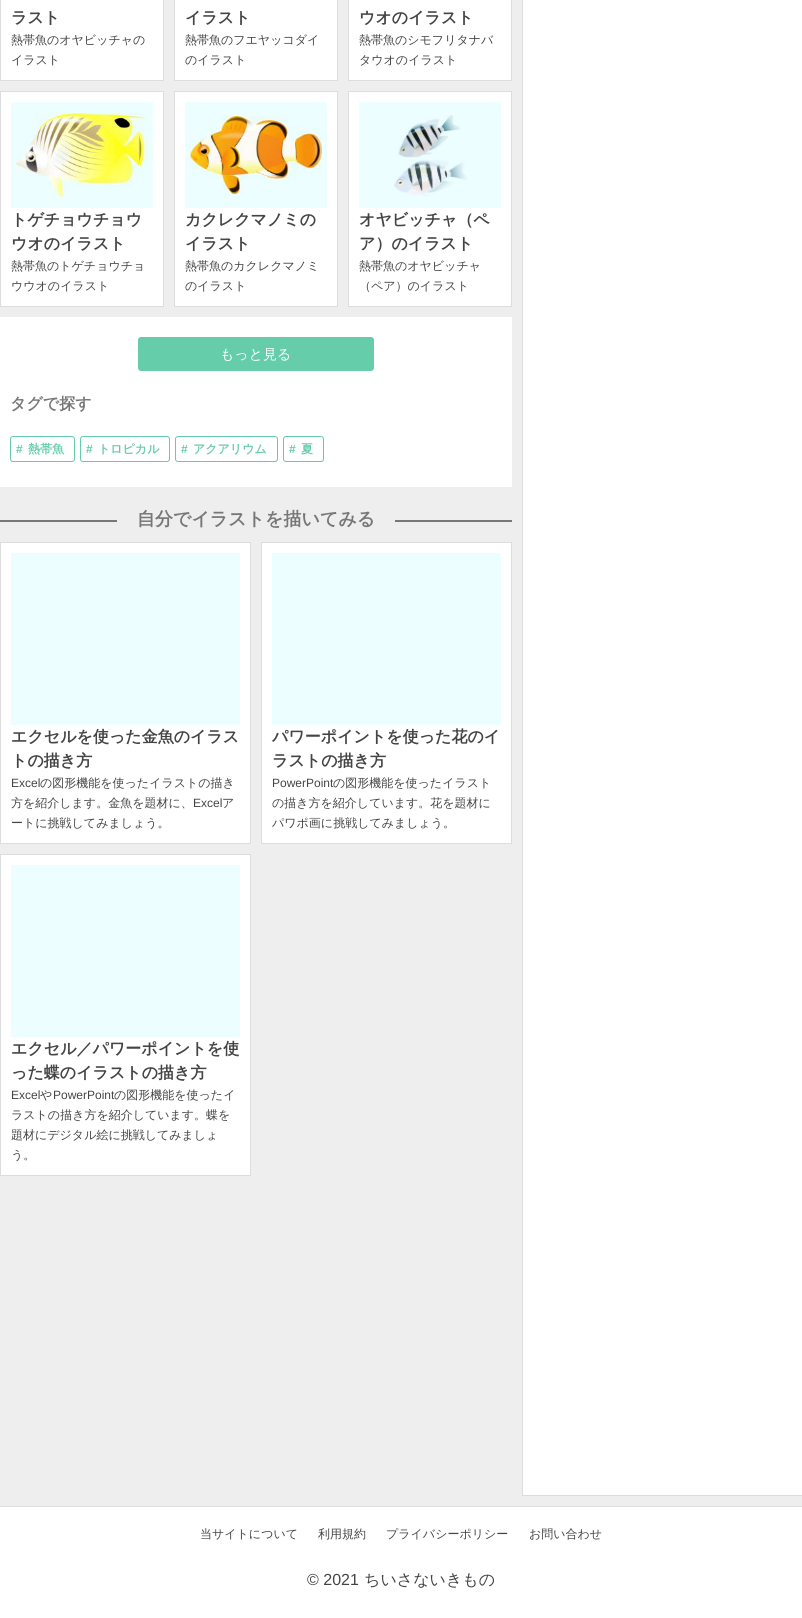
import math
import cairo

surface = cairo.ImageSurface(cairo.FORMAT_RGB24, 802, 1618)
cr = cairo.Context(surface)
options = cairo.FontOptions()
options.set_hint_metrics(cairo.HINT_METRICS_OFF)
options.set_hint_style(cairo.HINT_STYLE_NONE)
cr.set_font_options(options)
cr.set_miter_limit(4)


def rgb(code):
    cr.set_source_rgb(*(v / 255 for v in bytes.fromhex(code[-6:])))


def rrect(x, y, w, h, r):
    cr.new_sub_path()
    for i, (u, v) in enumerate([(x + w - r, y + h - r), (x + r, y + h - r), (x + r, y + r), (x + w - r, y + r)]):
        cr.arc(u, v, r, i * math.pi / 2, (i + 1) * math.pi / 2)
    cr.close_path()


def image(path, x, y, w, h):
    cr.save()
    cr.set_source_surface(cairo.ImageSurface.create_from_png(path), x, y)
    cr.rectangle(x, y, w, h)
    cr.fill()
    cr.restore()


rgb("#eeeeee")
cr.paint()
rgb("#ffffff")
cr.rectangle(0.5, -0.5, 163, 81)
cr.fill_preserve()
rgb("#dddddd")
cr.set_line_width(1)
cr.stroke()
rgb("#ffffff")
cr.rectangle(174.5, -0.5, 163, 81)
cr.fill_preserve()
rgb("#dddddd")
cr.stroke()
rgb("#ffffff")
cr.rectangle(348.5, -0.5, 163, 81)
cr.fill_preserve()
rgb("#dddddd")
cr.stroke()
rgb("#ffffff")
cr.rectangle(0.5, 91.5, 163, 215)
cr.fill_preserve()
rgb("#dddddd")
cr.stroke()
rgb("#ecfeff")
cr.rectangle(11, 102, 142, 106)
cr.fill()
image("img/1.png", 16, 113, 132, 84)
rgb("#ffffff")
cr.rectangle(174.5, 91.5, 163, 215)
cr.fill_preserve()
rgb("#dddddd")
cr.stroke()
rgb("#ecfeff")
cr.rectangle(185, 102, 142, 106)
cr.fill()
image("img/2.png", 190, 116, 132, 78)
rgb("#ffffff")
cr.rectangle(348.5, 91.5, 163, 215)
cr.fill_preserve()
rgb("#dddddd")
cr.stroke()
rgb("#ecfeff")
cr.rectangle(359, 102, 142, 106)
cr.fill()
image("img/3.png", 394, 115, 73, 81)
rgb("#ffffff")
cr.rectangle(0, 317, 512, 170)
cr.fill()
rgb("#66cdaa")
rrect(138, 337, 236, 34, 3)
cr.fill()
rrect(10.5, 436.5, 64, 25, 2.5)
cr.stroke()
rrect(80.5, 436.5, 89, 25, 2.5)
cr.stroke()
rrect(175.5, 436.5, 102, 25, 2.5)
cr.stroke()
rrect(283.5, 436.5, 40, 25, 2.5)
cr.stroke()
rgb("#777777")
cr.rectangle(0, 520, 512, 2)
cr.fill()
rgb("#eeeeee")
cr.rectangle(117, 520, 278, 2)
cr.fill()
rgb("#ffffff")
cr.rectangle(0.5, 542.5, 250, 301)
cr.fill_preserve()
rgb("#dddddd")
cr.stroke()
rgb("#ecfeff")
cr.rectangle(11, 553, 229, 172)
cr.fill()
rgb("#ffffff")
cr.rectangle(261.5, 542.5, 250, 301)
cr.fill_preserve()
rgb("#dddddd")
cr.stroke()
rgb("#ecfeff")
cr.rectangle(272, 553, 229, 172)
cr.fill()
rgb("#ffffff")
cr.rectangle(0.5, 854.5, 250, 321)
cr.fill_preserve()
rgb("#dddddd")
cr.stroke()
rgb("#ecfeff")
cr.rectangle(11, 865, 229, 172)
cr.fill()
rgb("#ffffff")
cr.rectangle(522.5, -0.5, 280, 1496)
cr.fill_preserve()
rgb("#dddddd")
cr.stroke()
rgb("#ffffff")
cr.rectangle(0, 1507, 802, 111)
cr.fill()
rgb("#dddddd")
cr.rectangle(0, 1506, 802, 1)
cr.fill()
cr.select_font_face("WenQuanYi Zen Hei", cairo.FONT_SLANT_NORMAL, cairo.FONT_WEIGHT_BOLD)
cr.set_font_size(16)
rgb("#444444")
cr.move_to(11, 23)
cr.show_text("ラスト")
cr.select_font_face("WenQuanYi Zen Hei Medium")
cr.set_font_size(12)
cr.move_to(11, 44)
cr.show_text("熱帯魚のオヤビッチャの")
cr.move_to(11, 64)
cr.show_text("イラスト")
cr.select_font_face("WenQuanYi Zen Hei", cairo.FONT_SLANT_NORMAL, cairo.FONT_WEIGHT_BOLD)
cr.set_font_size(16)
cr.move_to(185, 23)
cr.show_text("イラスト")
cr.select_font_face("WenQuanYi Zen Hei Medium")
cr.set_font_size(12)
cr.move_to(185, 44)
cr.show_text("熱帯魚のフエヤッコダイ")
cr.move_to(185, 64)
cr.show_text("のイラスト")
cr.select_font_face("WenQuanYi Zen Hei", cairo.FONT_SLANT_NORMAL, cairo.FONT_WEIGHT_BOLD)
cr.set_font_size(16)
cr.move_to(359, 23)
cr.show_text("ウオのイラスト")
cr.select_font_face("WenQuanYi Zen Hei Medium")
cr.set_font_size(12)
cr.move_to(359, 44)
cr.show_text("熱帯魚のシモフリタナバ")
cr.move_to(359, 64)
cr.show_text("タウオのイラスト")
cr.select_font_face("WenQuanYi Zen Hei", cairo.FONT_SLANT_NORMAL, cairo.FONT_WEIGHT_BOLD)
cr.set_font_size(16)
cr.move_to(11, 225)
cr.show_text("トゲチョウチョウ")
cr.move_to(11, 249)
cr.show_text("ウオのイラスト")
cr.select_font_face("WenQuanYi Zen Hei Medium")
cr.set_font_size(12)
cr.move_to(11, 270)
cr.show_text("熱帯魚のトゲチョウチョ")
cr.move_to(11, 290)
cr.show_text("ウウオのイラスト")
cr.select_font_face("WenQuanYi Zen Hei", cairo.FONT_SLANT_NORMAL, cairo.FONT_WEIGHT_BOLD)
cr.set_font_size(16)
cr.move_to(185, 225)
cr.show_text("カクレクマノミの")
cr.move_to(185, 249)
cr.show_text("イラスト")
cr.select_font_face("WenQuanYi Zen Hei Medium")
cr.set_font_size(12)
cr.move_to(185, 270)
cr.show_text("熱帯魚のカクレクマノミ")
cr.move_to(185, 290)
cr.show_text("のイラスト")
cr.select_font_face("WenQuanYi Zen Hei", cairo.FONT_SLANT_NORMAL, cairo.FONT_WEIGHT_BOLD)
cr.set_font_size(16)
cr.move_to(359, 225)
cr.show_text("オヤビッチャ（ペ")
cr.move_to(359, 249)
cr.show_text("ア）のイラスト")
cr.select_font_face("WenQuanYi Zen Hei Medium")
cr.set_font_size(12)
cr.move_to(359, 270)
cr.show_text("熱帯魚のオヤビッチャ")
cr.move_to(359, 290)
cr.show_text("（ペア）のイラスト")
cr.set_font_size(14)
rgb("#ffffff")
cr.move_to(220, 359)
cr.show_text("もっと見る")
cr.select_font_face("WenQuanYi Zen Hei", cairo.FONT_SLANT_NORMAL, cairo.FONT_WEIGHT_BOLD)
cr.set_font_size(16)
rgb("#777777")
cr.move_to(10, 409)
cr.show_text("タグで探す")
cr.select_font_face("Liberation Sans", cairo.FONT_SLANT_NORMAL, cairo.FONT_WEIGHT_BOLD)
cr.set_font_size(12)
rgb("#66cdaa")
cr.move_to(16, 453)
cr.show_text("#")
cr.select_font_face("WenQuanYi Zen Hei", cairo.FONT_SLANT_NORMAL, cairo.FONT_WEIGHT_BOLD)
cr.move_to(28, 453)
cr.show_text("熱帯魚")
cr.select_font_face("Liberation Sans", cairo.FONT_SLANT_NORMAL, cairo.FONT_WEIGHT_BOLD)
cr.move_to(86, 453)
cr.show_text("#")
cr.select_font_face("WenQuanYi Zen Hei", cairo.FONT_SLANT_NORMAL, cairo.FONT_WEIGHT_BOLD)
cr.move_to(98, 453)
cr.show_text("トロピカル")
cr.select_font_face("Liberation Sans", cairo.FONT_SLANT_NORMAL, cairo.FONT_WEIGHT_BOLD)
cr.move_to(181, 453)
cr.show_text("#")
cr.select_font_face("WenQuanYi Zen Hei", cairo.FONT_SLANT_NORMAL, cairo.FONT_WEIGHT_BOLD)
cr.move_to(193, 453)
cr.show_text("アクアリウム")
cr.select_font_face("Liberation Sans", cairo.FONT_SLANT_NORMAL, cairo.FONT_WEIGHT_BOLD)
cr.move_to(289, 453)
cr.show_text("#")
cr.select_font_face("WenQuanYi Zen Hei", cairo.FONT_SLANT_NORMAL, cairo.FONT_WEIGHT_BOLD)
cr.move_to(301, 453)
cr.show_text("夏")
cr.set_font_size(18)
rgb("#777777")
cr.move_to(137, 525)
cr.show_text("自分でイラストを描いてみる")
cr.set_font_size(16)
rgb("#444444")
cr.move_to(11, 742)
cr.show_text("エクセルを使った金魚のイラス")
cr.move_to(11, 766)
cr.show_text("トの描き方")
cr.select_font_face("Liberation Sans")
cr.set_font_size(12)
cr.move_to(11, 787)
cr.show_text("Excel")
cr.select_font_face("WenQuanYi Zen Hei Medium")
cr.move_to(40, 787)
cr.show_text("の図形機能を使ったイラストの描き")
cr.move_to(11, 807)
cr.show_text("方を紹介します。金魚を題材に、")
cr.select_font_face("Liberation Sans")
cr.move_to(193, 807)
cr.show_text("Excel")
cr.select_font_face("WenQuanYi Zen Hei Medium")
cr.move_to(222, 807)
cr.show_text("ア")
cr.move_to(11, 827)
cr.show_text("ートに挑戦してみましょう。")
cr.select_font_face("WenQuanYi Zen Hei", cairo.FONT_SLANT_NORMAL, cairo.FONT_WEIGHT_BOLD)
cr.set_font_size(16)
cr.move_to(272, 742)
cr.show_text("パワーポイントを使った花のイ")
cr.move_to(272, 766)
cr.show_text("ラストの描き方")
cr.select_font_face("Liberation Sans")
cr.set_font_size(12)
cr.move_to(272, 787)
cr.show_text("PowerPoint")
cr.select_font_face("WenQuanYi Zen Hei Medium")
for x, y, s in [
    (333, 787, "の図形機能を使ったイラスト"),
    (272, 807, "の描き方を紹介しています。花を題材に"),
    (272, 827, "パワポ画に挑戦してみましょう。"),
]:
    cr.move_to(x, y)
    cr.show_text(s)
cr.select_font_face("WenQuanYi Zen Hei", cairo.FONT_SLANT_NORMAL, cairo.FONT_WEIGHT_BOLD)
cr.set_font_size(16)
cr.move_to(11, 1054)
cr.show_text("エクセル／パワーポイントを使")
cr.move_to(11, 1078)
cr.show_text("った蝶のイラストの描き方")
cr.select_font_face("Liberation Sans")
cr.set_font_size(12)
cr.move_to(11, 1099)
cr.show_text("Excel")
cr.select_font_face("WenQuanYi Zen Hei Medium")
cr.move_to(40, 1099)
cr.show_text("や")
cr.select_font_face("Liberation Sans")
cr.move_to(53, 1099)
cr.show_text("PowerPoint")
cr.select_font_face("WenQuanYi Zen Hei Medium")
for x, y, s in [
    (114, 1099, "の図形機能を使ったイ"),
    (11, 1119, "ラストの描き方を紹介しています。蝶を"),
    (11, 1139, "題材にデジタル絵に挑戦してみましょ"),
    (11, 1159, "う。"),
    (200, 1538, "当サイトについて"),
    (318, 1538, "利用規約"),
    (386, 1538, "プライバシーポリシー"),
    (529, 1538, "お問い合わせ"),
]:
    cr.move_to(x, y)
    cr.show_text(s)
cr.select_font_face("Liberation Sans")
cr.set_font_size(16)
cr.move_to(307, 1585)
cr.show_text("© 2021")
cr.select_font_face("WenQuanYi Zen Hei Medium")
cr.move_to(364, 1585)
cr.show_text("ちいさないきもの")
surface.write_to_png("page.png")
